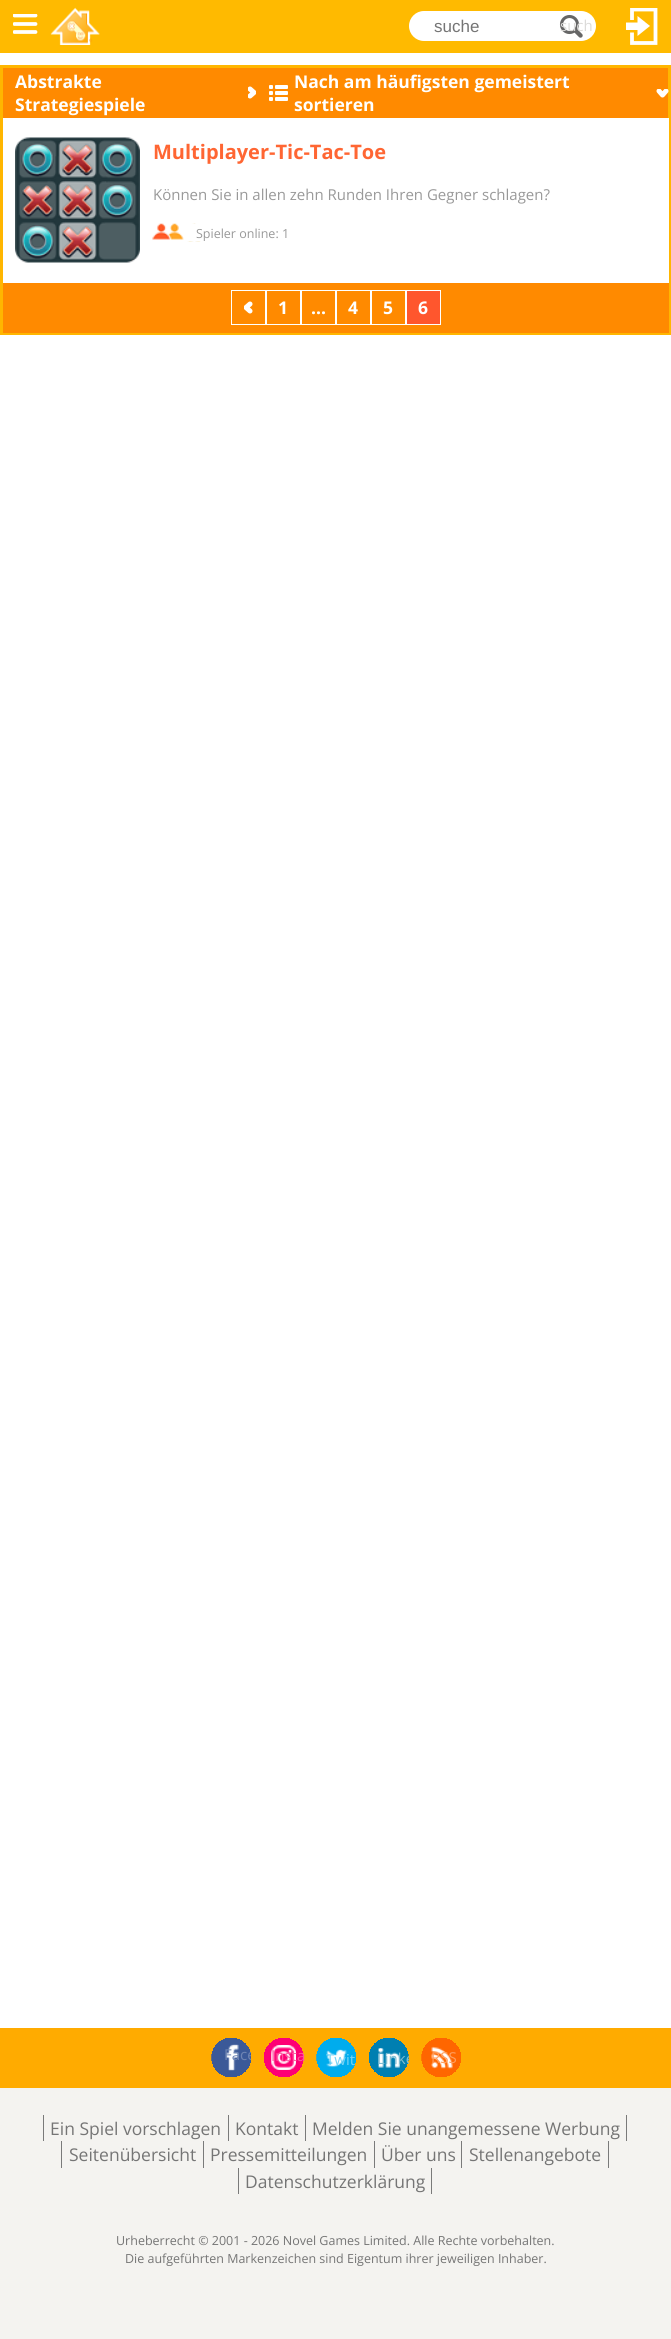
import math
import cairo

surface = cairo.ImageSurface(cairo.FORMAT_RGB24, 671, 2339)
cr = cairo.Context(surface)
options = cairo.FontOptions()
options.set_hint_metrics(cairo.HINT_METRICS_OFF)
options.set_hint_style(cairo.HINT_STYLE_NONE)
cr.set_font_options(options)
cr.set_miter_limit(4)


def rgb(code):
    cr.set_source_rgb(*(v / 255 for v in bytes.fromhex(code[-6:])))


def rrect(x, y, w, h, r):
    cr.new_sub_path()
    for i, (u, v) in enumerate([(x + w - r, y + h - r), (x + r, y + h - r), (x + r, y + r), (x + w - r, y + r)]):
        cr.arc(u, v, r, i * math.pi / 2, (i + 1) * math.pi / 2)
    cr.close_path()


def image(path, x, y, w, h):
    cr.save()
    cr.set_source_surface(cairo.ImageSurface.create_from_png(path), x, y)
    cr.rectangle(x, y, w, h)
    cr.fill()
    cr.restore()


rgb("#ffffff")
cr.paint()
rgb("#ffba00")
cr.rectangle(0, 0, 671, 53)
cr.fill()
cr.save()
cr.rectangle(13, 14, 25, 20)
cr.clip()
cr.new_path()
cr.move_to(14.5, 15.5)
cr.line_to(35.5, 15.5)
cr.move_to(14.5, 24)
cr.line_to(35.5, 24)
cr.move_to(14.5, 32)
cr.line_to(35.5, 32)
rgb("#ffffff")
cr.set_line_width(3.8)
cr.set_line_cap(cairo.LINE_CAP_ROUND)
cr.stroke()
cr.restore()
image("img/1.png", 50, 7, 50, 38)
rgb("#ffffff")
rrect(409, 11, 187, 30, 15)
cr.fill()
cr.new_path()
cr.move_to(572.5, 27.5)
cr.line_to(580.5, 35.5)
rgb("#666666")
cr.set_line_width(4.4)
cr.set_line_cap(cairo.LINE_CAP_ROUND)
cr.stroke()
rgb("#ffffff")
cr.arc(569.5, 24.5, 8, 0, 2 * math.pi)
cr.fill_preserve()
rgb("#666666")
cr.set_line_width(3.1)
cr.set_line_cap(cairo.LINE_CAP_BUTT)
cr.stroke()
cr.save()
cr.rectangle(626, 8, 33, 37)
cr.clip()
cr.new_path()
cr.move_to(632, 20)
cr.line_to(632, 9.5)
cr.line_to(655.5, 9.5)
cr.line_to(655.5, 43)
cr.line_to(632, 43)
cr.line_to(632, 32.5)
rgb("#ffffff")
cr.set_line_width(3.8)
cr.stroke()
cr.restore()
rgb("#ffffff")
cr.new_path()
cr.move_to(626, 22.5)
cr.line_to(637.5, 22.5)
cr.line_to(637.5, 16)
cr.line_to(650, 26)
cr.line_to(637.5, 36)
cr.line_to(637.5, 30)
cr.line_to(626, 30)
cr.close_path()
cr.fill()
rgb("#ff8a00")
cr.rectangle(3, 68, 665, 50)
cr.fill()
cr.rectangle(1.5, 66.5, 668, 267)
rgb("#ffb600")
cr.set_line_width(3)
cr.stroke()
cr.save()
cr.rectangle(248, 86, 8, 13)
cr.clip()
cr.new_path()
cr.move_to(250, 89)
cr.line_to(254, 92.5)
cr.line_to(250, 96)
rgb("#ffffff")
cr.set_line_width(5)
cr.set_line_cap(cairo.LINE_CAP_ROUND)
cr.set_line_join(cairo.LINE_JOIN_ROUND)
cr.stroke()
cr.restore()
image("img/2.png", 269, 85, 19, 16)
cr.save()
cr.rectangle(656, 89, 13, 9)
cr.clip()
cr.new_path()
cr.move_to(659, 91)
cr.line_to(662.5, 95)
cr.line_to(666, 91)
rgb("#ffffff")
cr.set_line_width(5)
cr.set_line_cap(cairo.LINE_CAP_ROUND)
cr.set_line_join(cairo.LINE_JOIN_ROUND)
cr.stroke()
cr.restore()
rgb("#ffffff")
cr.rectangle(668, 118, 1, 165)
cr.fill()
image("img/3.png", 15, 137, 125, 126)
image("img/4.png", 152, 223, 49, 19)
rgb("#ff8a00")
cr.rectangle(3, 283, 666, 50)
cr.fill()
cr.save()
cr.rectangle(244, 301, 9, 13)
cr.clip()
cr.new_path()
cr.move_to(250, 304)
cr.line_to(246, 307.5)
cr.line_to(250, 311)
rgb("#ffffff")
cr.set_line_width(5)
cr.set_line_cap(cairo.LINE_CAP_ROUND)
cr.set_line_join(cairo.LINE_JOIN_ROUND)
cr.stroke()
cr.restore()
cr.rectangle(231.5, 290.5, 34, 34)
rgb("#ffffff")
cr.set_line_width(1)
cr.stroke()
cr.rectangle(266.5, 290.5, 34, 34)
cr.stroke()
cr.rectangle(301.5, 290.5, 34, 34)
cr.stroke()
cr.rectangle(336.5, 290.5, 34, 34)
cr.stroke()
cr.rectangle(371.5, 290.5, 34, 34)
cr.stroke()
rgb("#ff562d")
cr.rectangle(406.5, 290.5, 34, 34)
cr.fill_preserve()
rgb("#ffffff")
cr.stroke()
rgb("#f4f3f0")
cr.rectangle(0, 2088, 671, 251)
cr.fill()
rgb("#ffab00")
cr.rectangle(0, 2028, 671, 60)
cr.fill()
image("img/5.png", 211, 2038, 40, 39)
image("img/6.png", 264, 2038, 40, 39)
image("img/7.png", 316, 2038, 40, 39)
image("img/8.png", 369, 2038, 40, 39)
image("img/9.png", 421, 2038, 40, 39)
for x, y, w, h, color in [
    (228, 2115, 1, 26, "#7a7a7a"),
    (43, 2115, 1, 26, "#7a7a7a"),
    (305, 2115, 1, 26, "#7a7a7a"),
    (626, 2115, 1, 26, "#7a7a7a"),
    (203, 2141, 1, 27, "#7a7a7a"),
    (61, 2141, 1, 27, "#7a7a7a"),
    (374, 2141, 1, 27, "#7a7a7a"),
    (461, 2141, 1, 27, "#7a7a7a"),
    (608, 2141, 1, 27, "#7a7a7a"),
    (431, 2168, 1, 26, "#7a7a7a"),
    (238, 2168, 1, 26, "#7a7a7a"),
]:
    rgb(color)
    cr.rectangle(x, y, w, h)
    cr.fill()
cr.select_font_face("Liberation Sans")
cr.set_font_size(17)
rgb("#757575")
cr.move_to(434, 32)
cr.show_text("suche")
cr.select_font_face("Open Sans")
cr.set_font_size(15)
rgb("#dcdbd9")
cr.move_to(560, 31)
cr.show_text("such")
cr.select_font_face("Open Sans", cairo.FONT_SLANT_NORMAL, cairo.FONT_WEIGHT_BOLD)
cr.set_font_size(17.5)
rgb("#ffffff")
for x, y, s in [
    (15, 88, "Abstrakte"),
    (15, 111, "Strategiespiele"),
    (294, 88, "Nach am häufigsten gemeistert"),
    (294, 111, "sortieren"),
]:
    cr.move_to(x, y)
    cr.show_text(s)
cr.set_font_size(20)
rgb("#ff6633")
cr.move_to(153, 159)
cr.show_text("Multiplayer-Tic-Tac-Toe")
cr.select_font_face("Open Sans")
cr.set_font_size(15)
rgb("#999999")
cr.move_to(153, 200)
cr.show_text("Können Sie in allen zehn Runden Ihren Gegner schlagen?")
cr.set_font_size(12.5)
cr.move_to(196, 238)
cr.show_text("Spieler online: 1")
cr.select_font_face("Open Sans", cairo.FONT_SLANT_NORMAL, cairo.FONT_WEIGHT_BOLD)
cr.set_font_size(17.5)
rgb("#ffffff")
for x, y, s in [
    (278, 314, "1"),
    (311, 314, "..."),
    (348, 314, "4"),
    (383, 314, "5"),
    (418, 314, "6"),
]:
    cr.move_to(x, y)
    cr.show_text(s)
cr.save()
cr.rectangle(211, 2038, 40, 40)
cr.clip()
cr.select_font_face("Open Sans")
cr.set_font_size(15)
rgb("#6f85b3")
cr.move_to(224, 2060)
cr.show_text("Face")
cr.restore()
cr.select_font_face("Open Sans")
cr.set_font_size(15)
rgb("#fe56a0")
cr.move_to(271, 2061)
cr.show_text("Insta")
rgb("#77d3f5")
cr.move_to(326, 2065)
cr.show_text("Twit")
cr.save()
cr.rectangle(369, 2038, 40, 40)
cr.clip()
rgb("#7fbdd2")
cr.move_to(377, 2064)
cr.show_text("Linke")
cr.restore()
rgb("#ff9e5e")
cr.move_to(431, 2063)
cr.show_text("RSS")
cr.set_font_size(17.5)
rgb("#757575")
for x, y, s in [
    (50, 2135, "Ein Spiel vorschlagen"),
    (235, 2135, "Kontakt"),
    (312, 2135, "Melden Sie unangemessene Werbung"),
    (69, 2161, "Seitenübersicht"),
    (210, 2161, "Pressemitteilungen"),
    (381, 2161, "Über uns"),
    (469, 2161, "Stellenangebote"),
    (245, 2188, "Datenschutzerklärung"),
]:
    cr.move_to(x, y)
    cr.show_text(s)
cr.set_font_size(12.5)
cr.move_to(116, 2245)
cr.show_text("Urheberrecht © 2001 - 2026 Novel Games Limited. Alle Rechte vorbehalten.")
cr.move_to(125, 2263)
cr.show_text("Die aufgeführten Markenzeichen sind Eigentum ihrer jeweiligen Inhaber.")
surface.write_to_png("page.png")
